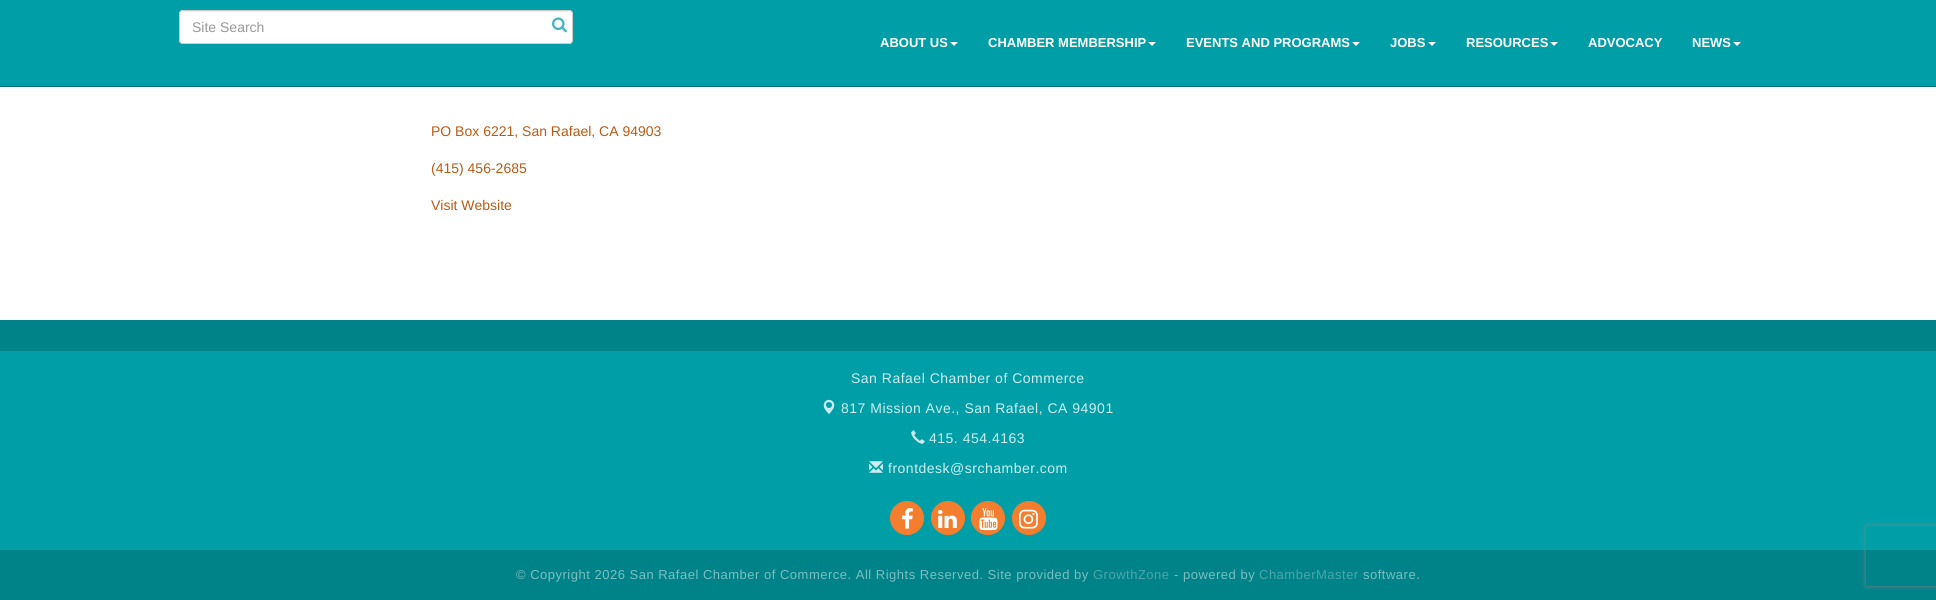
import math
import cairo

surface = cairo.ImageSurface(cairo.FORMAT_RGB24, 1936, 600)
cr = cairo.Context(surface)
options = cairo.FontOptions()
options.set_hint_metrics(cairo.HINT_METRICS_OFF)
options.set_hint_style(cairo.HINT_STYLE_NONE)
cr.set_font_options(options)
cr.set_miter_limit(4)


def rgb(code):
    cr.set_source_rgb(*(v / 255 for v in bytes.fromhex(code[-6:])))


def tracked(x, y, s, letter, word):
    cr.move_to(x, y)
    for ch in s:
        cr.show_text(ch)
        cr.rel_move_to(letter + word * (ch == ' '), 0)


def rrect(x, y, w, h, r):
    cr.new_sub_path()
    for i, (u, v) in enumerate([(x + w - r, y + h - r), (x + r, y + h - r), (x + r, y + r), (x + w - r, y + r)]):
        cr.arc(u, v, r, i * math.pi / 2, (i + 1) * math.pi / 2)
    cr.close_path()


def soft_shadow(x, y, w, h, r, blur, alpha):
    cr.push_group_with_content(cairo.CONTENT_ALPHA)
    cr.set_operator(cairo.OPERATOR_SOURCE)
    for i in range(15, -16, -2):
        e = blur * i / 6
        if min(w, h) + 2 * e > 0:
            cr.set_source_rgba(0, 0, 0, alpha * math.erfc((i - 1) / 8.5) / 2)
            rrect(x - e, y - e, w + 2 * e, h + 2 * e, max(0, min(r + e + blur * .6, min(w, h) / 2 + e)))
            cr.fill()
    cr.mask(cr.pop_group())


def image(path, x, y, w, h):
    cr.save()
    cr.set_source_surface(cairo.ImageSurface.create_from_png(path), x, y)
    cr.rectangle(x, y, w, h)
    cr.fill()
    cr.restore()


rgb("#ffffff")
cr.paint()
rgb("#009fa8")
cr.rectangle(0, 0, 1936, 86)
cr.fill()
rgb("#006f75")
cr.rectangle(0, 86, 1936, 1)
cr.fill()
rgb("#ffffff")
rrect(179, 10, 394, 34, 4)
cr.fill()
rgb("#ececec")
cr.new_path()
cr.move_to(183, 12)
cr.line_to(569, 12)
cr.curve_to(571, 12, 572, 13, 572, 15)
cr.curve_to(572, 13, 571, 11, 569, 11)
cr.line_to(183, 11)
cr.line_to(181, 12)
cr.line_to(180, 15)
cr.curve_to(180, 13, 181, 12, 183, 12)
cr.close_path()
cr.fill()
rrect(179.5, 10.5, 393, 33, 3.5)
rgb("#cccccc")
cr.set_line_width(1)
cr.stroke()
image("img/1.png", 552, 17, 15, 16)
rgb("#ffffff")
cr.new_path()
cr.move_to(950, 42)
cr.line_to(958, 42)
cr.line_to(954, 46)
cr.close_path()
cr.fill()
cr.new_path()
cr.move_to(1148, 42)
cr.line_to(1156, 42)
cr.line_to(1152, 46)
cr.close_path()
cr.fill()
cr.new_path()
cr.move_to(1352, 42)
cr.line_to(1360, 42)
cr.line_to(1356, 46)
cr.close_path()
cr.fill()
cr.new_path()
cr.move_to(1428, 42)
cr.line_to(1436, 42)
cr.line_to(1432, 46)
cr.close_path()
cr.fill()
cr.new_path()
cr.move_to(1550, 42)
cr.line_to(1558, 42)
cr.line_to(1554, 46)
cr.close_path()
cr.fill()
cr.new_path()
cr.move_to(1733, 42)
cr.line_to(1741, 42)
cr.line_to(1737, 46)
cr.close_path()
cr.fill()
rgb("#008289")
cr.rectangle(0, 320, 1936, 31)
cr.fill()
rgb("#009fa8")
cr.rectangle(0, 351, 1936, 199)
cr.fill()
image("img/2.png", 823, 399, 12, 15)
image("img/3.png", 911, 430, 14, 14)
image("img/4.png", 869, 461, 14, 12)
rgb("#f47d2e")
cr.arc(907, 518, 16.5, 0, 2 * math.pi)
cr.fill_preserve()
cr.stroke()
image("img/5.png", 902, 508, 11, 21)
cr.arc(948, 518, 16.5, 0, 2 * math.pi)
cr.fill_preserve()
cr.stroke()
image("img/6.png", 938, 510, 19, 18)
cr.arc(988, 518, 16.5, 0, 2 * math.pi)
cr.fill_preserve()
cr.stroke()
image("img/7.png", 979, 508, 19, 23)
cr.arc(1029, 518, 16.5, 0, 2 * math.pi)
cr.fill_preserve()
cr.stroke()
image("img/8.png", 1019, 509, 19, 20)
rgb("#008289")
cr.rectangle(0, 550, 1936, 50)
cr.fill()
cr.save()
cr.set_fill_rule(cairo.FILL_RULE_EVEN_ODD)
cr.new_path()
cr.move_to(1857, 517)
cr.line_to(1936, 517)
cr.line_to(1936, 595)
cr.line_to(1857, 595)
cr.close_path()
cr.move_to(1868, 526)
cr.line_to(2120, 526)
cr.curve_to(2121, 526, 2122, 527, 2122, 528)
cr.line_to(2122, 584)
cr.curve_to(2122, 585, 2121, 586, 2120, 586)
cr.line_to(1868, 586)
cr.curve_to(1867, 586, 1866, 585, 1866, 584)
cr.line_to(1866, 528)
cr.curve_to(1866, 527, 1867, 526, 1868, 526)
cr.close_path()
cr.clip()
rgb("#808080")
soft_shadow(1866, 526, 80, 60, 2, 2.5, 1)
cr.restore()
cr.select_font_face("Liberation Sans")
cr.set_font_size(14)
rgb("#999999")
cr.move_to(192, 32)
cr.show_text("Site Search")
cr.select_font_face("Liberation Sans", cairo.FONT_SLANT_NORMAL, cairo.FONT_WEIGHT_BOLD)
cr.set_font_size(13)
rgb("#ffffff")
for x, y, s in [
    (880, 47, "ABOUT US"),
    (988, 47, "CHAMBER MEMBERSHIP"),
    (1186, 47, "EVENTS AND PROGRAMS"),
    (1390, 47, "JOBS"),
    (1466, 47, "RESOURCES"),
    (1588, 47, "ADVOCACY"),
    (1692, 47, "NEWS"),
]:
    cr.move_to(x, y)
    cr.show_text(s)
cr.select_font_face("Liberation Sans")
cr.set_font_size(14)
rgb("#ba5a15")
for x, y, s in [
    (431, 136, "PO Box 6221, San Rafael, CA 94903"),
    (431, 173, "(415) 456-2685"),
    (431, 210, "Visit Website"),
]:
    cr.move_to(x, y)
    cr.show_text(s)
rgb("#ccecee")
for x, y, s in [
    (851, 383, "San Rafael Chamber of Commerce"),
    (841, 413, "817 Mission Ave., San Rafael, CA 94901"),
    (929, 443, "415. 454.4163"),
    (888, 473, "frontdesk@srchamber.com"),
]:
    tracked(x, y, s, 0.5, 0)
cr.set_font_size(13)
rgb("#7abec2")
tracked(516, 579, "© Copyright 2026 San Rafael Chamber of Commerce. All Rights Reserved. Site provided by", 0.5, 0)
rgb("#4aa6ab")
tracked(1093, 579, "GrowthZone", 0.5, 0)
rgb("#7abec2")
tracked(1174, 579, "- powered by", 0.5, 0)
rgb("#4aa6ab")
tracked(1259, 579, "ChamberMaster", 0.5, 0)
rgb("#7abec2")
tracked(1363, 579, "software.", 0.5, 0)
surface.write_to_png("page.png")
